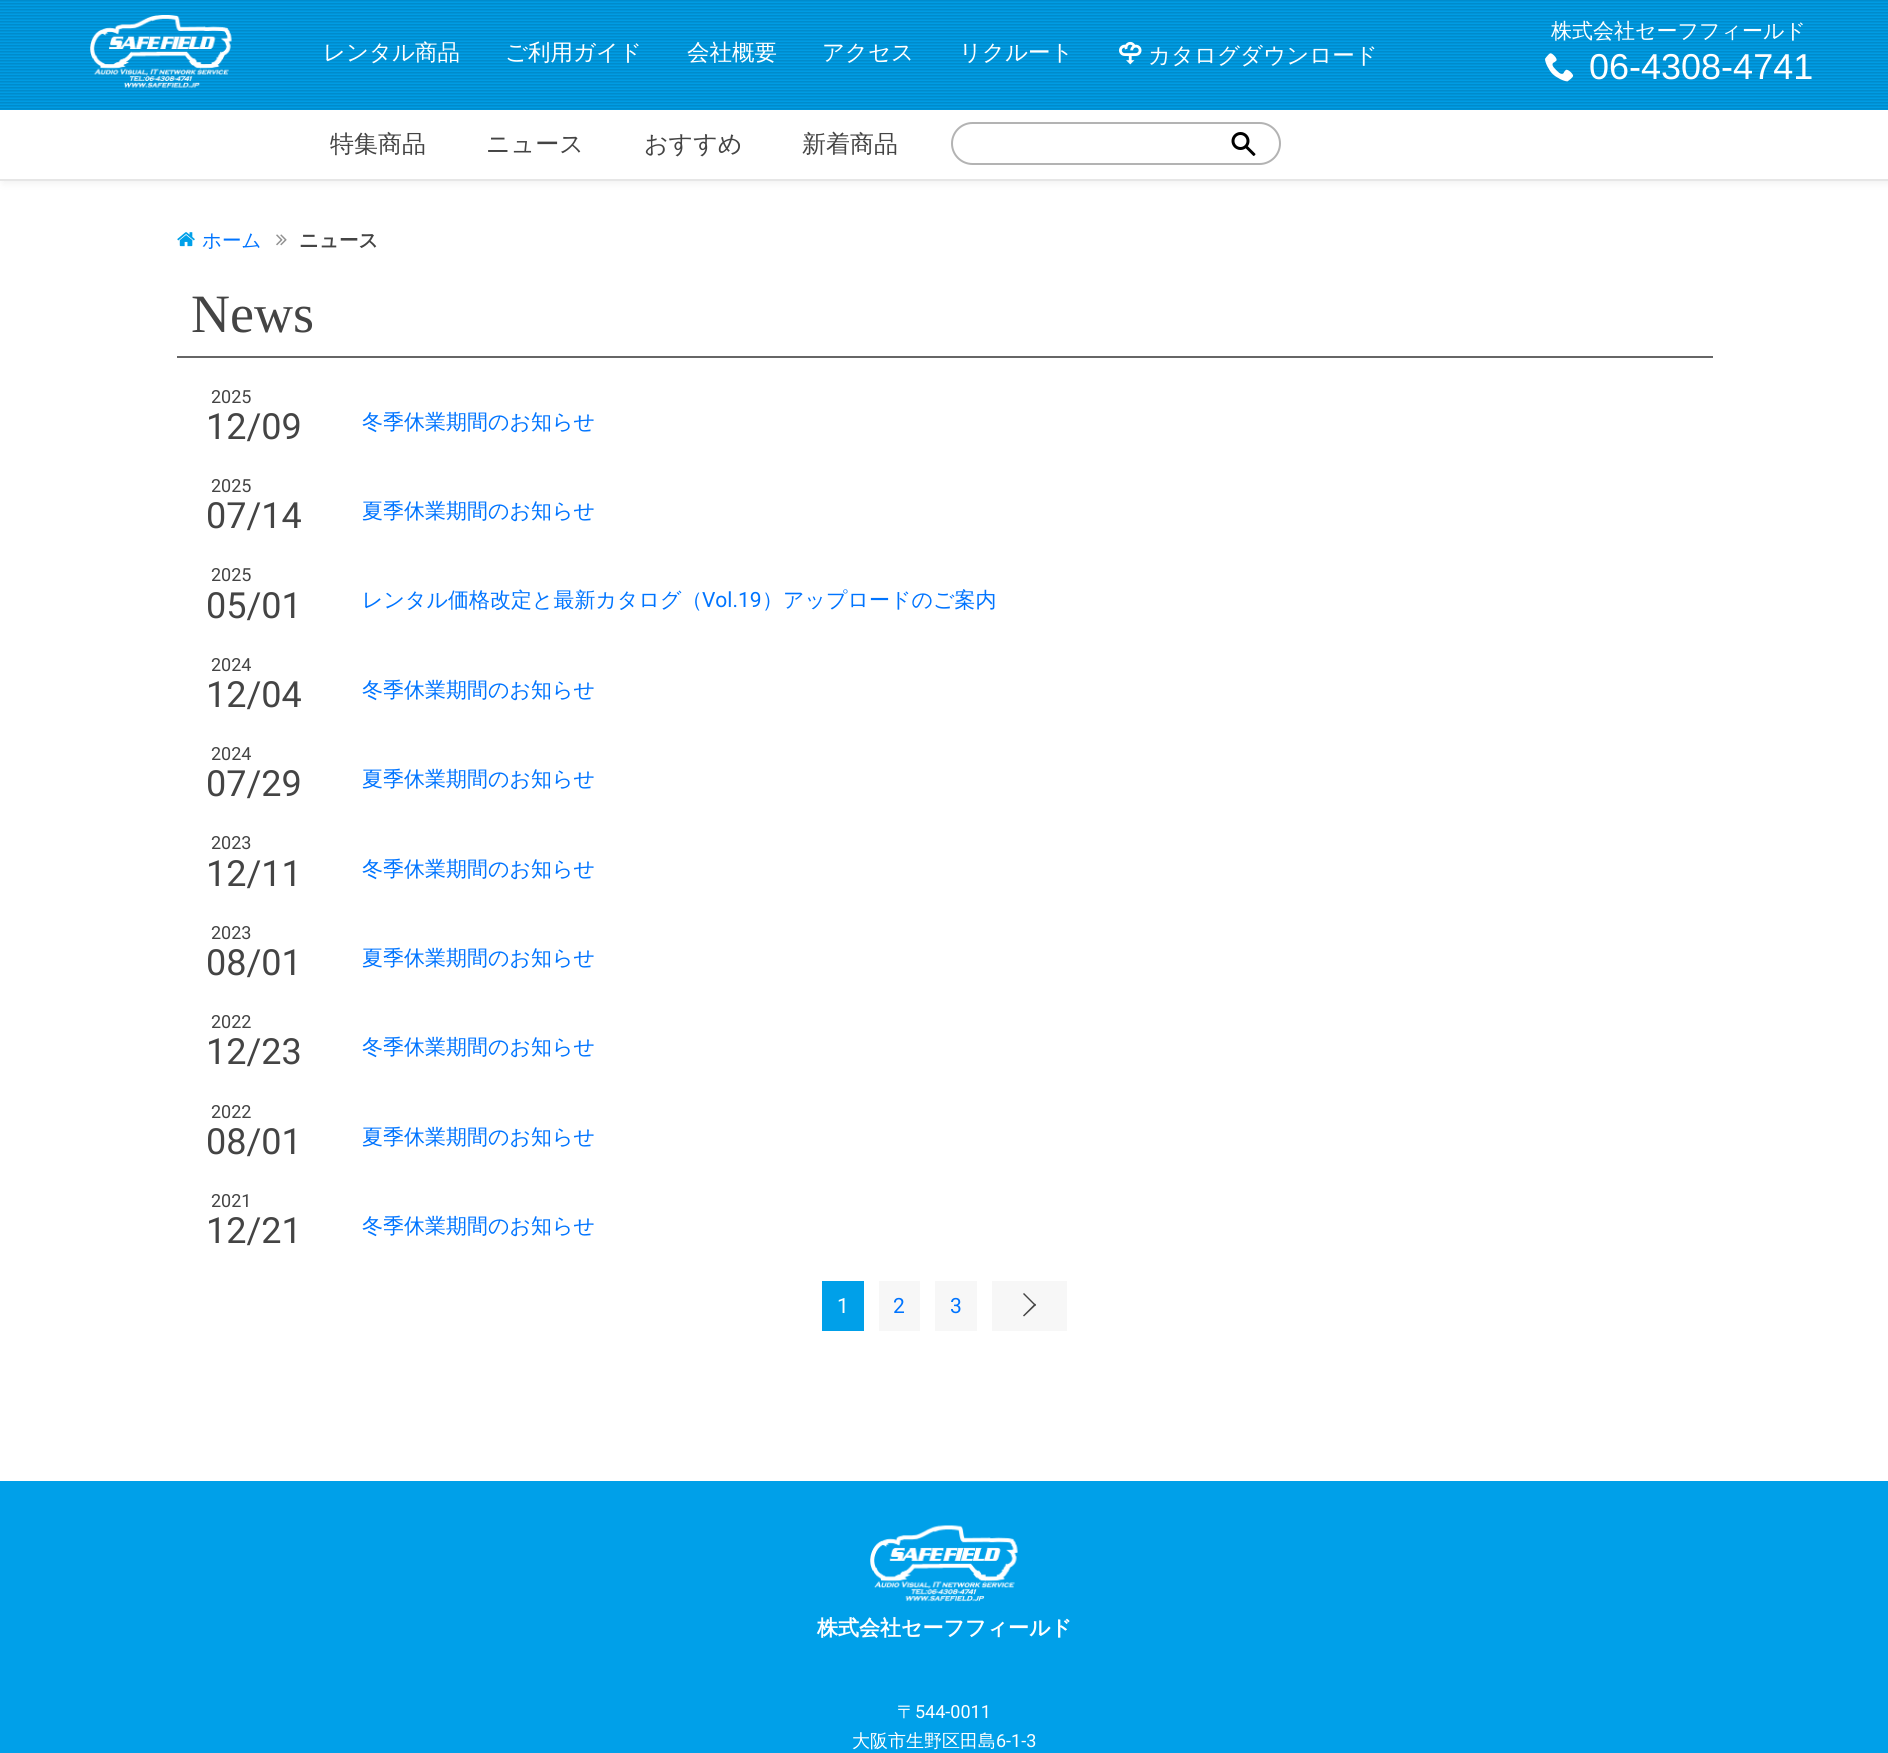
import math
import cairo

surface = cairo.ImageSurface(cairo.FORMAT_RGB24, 1888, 1753)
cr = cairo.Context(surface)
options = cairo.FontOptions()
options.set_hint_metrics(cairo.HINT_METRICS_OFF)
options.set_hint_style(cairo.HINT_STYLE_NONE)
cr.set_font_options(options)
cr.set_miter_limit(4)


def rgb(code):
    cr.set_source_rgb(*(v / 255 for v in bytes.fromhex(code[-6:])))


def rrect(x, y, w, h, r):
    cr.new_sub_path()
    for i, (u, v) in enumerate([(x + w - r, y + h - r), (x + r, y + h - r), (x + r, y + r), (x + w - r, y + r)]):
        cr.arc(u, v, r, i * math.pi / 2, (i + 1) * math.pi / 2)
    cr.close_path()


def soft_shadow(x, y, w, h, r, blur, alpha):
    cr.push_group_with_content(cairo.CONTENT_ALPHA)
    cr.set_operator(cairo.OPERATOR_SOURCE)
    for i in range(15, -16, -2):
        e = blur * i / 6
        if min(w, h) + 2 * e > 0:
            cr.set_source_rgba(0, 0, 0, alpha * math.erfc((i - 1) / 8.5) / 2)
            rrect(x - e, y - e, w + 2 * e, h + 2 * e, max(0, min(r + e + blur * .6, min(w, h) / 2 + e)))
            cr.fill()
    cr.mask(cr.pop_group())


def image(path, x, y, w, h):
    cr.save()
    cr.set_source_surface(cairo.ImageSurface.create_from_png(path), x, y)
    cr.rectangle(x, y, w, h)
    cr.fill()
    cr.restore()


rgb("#ffffff")
cr.paint()
rgb("#646464")
soft_shadow(3, 3, 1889, 180, 0, 4, 0.1)
rgb("#00a0e9")
cr.rectangle(0, 0, 1888, 110)
cr.fill()
image("img/1.png", 0, 0, 1888, 110)
rgb("#e6e6e6")
cr.rectangle(0, 179, 1888, 2)
cr.fill()
image("img/2.png", 90, 15, 142, 73)
image("img/3.png", 1119, 41, 23, 24)
image("img/4.png", 1545, 53, 29, 29)
rgb("#ffffff")
cr.rectangle(0, 110, 1888, 69)
cr.fill()
rrect(952, 123, 328, 41, 20.5)
rgb("#b3b3b3")
cr.stroke()
image("img/5.png", 1231, 132, 25, 24)
image("img/6.png", 177, 232, 18, 15)
image("img/7.png", 276, 234, 11, 12)
for x, y, w, h, color in [
    (177, 356, 1536, 2, "#666666"),
    (822, 1281, 42, 50, "#00a0e9"),
    (879, 1281, 41, 50, "#f7f7f7"),
    (935, 1281, 42, 50, "#f7f7f7"),
    (992, 1281, 75, 50, "#f7f7f7"),
]:
    rgb(color)
    cr.rectangle(x, y, w, h)
    cr.fill()
rgb("#444444")
cr.new_path()
cr.move_to(1024, 1293)
cr.line_to(1036, 1305)
cr.line_to(1035, 1306)
cr.line_to(1023, 1294)
cr.close_path()
cr.fill()
cr.new_path()
cr.move_to(1035, 1303.5)
cr.line_to(1036, 1305)
cr.line_to(1024, 1316.5)
cr.line_to(1023, 1315.5)
cr.close_path()
cr.fill()
rgb("#00a0e9")
cr.rectangle(0, 1481, 1888, 272)
cr.fill()
image("img/8.png", 870, 1525, 148, 77)
cr.select_font_face("WenQuanYi Zen Hei Medium")
cr.set_font_size(22.5)
rgb("#ffffff")
for x, y, s in [
    (323, 60, "レンタル商品"),
    (505, 60, "ご利用ガイド"),
    (687, 60, "会社概要"),
    (822, 60, "アクセス"),
    (959, 60, "リクルート"),
    (1148, 63, "カタログダウンロード"),
]:
    cr.move_to(x, y)
    cr.show_text(s)
cr.set_font_size(21)
cr.move_to(1551, 38)
cr.show_text("株式会社セーフフィールド")
cr.select_font_face("Liberation Sans")
cr.set_font_size(36)
cr.move_to(1589, 79)
cr.show_text("06-4308-4741")
cr.select_font_face("WenQuanYi Zen Hei Medium")
cr.set_font_size(24)
rgb("#444444")
for x, y, s in [
    (330, 152, "特集商品"),
    (486, 152, "ニュース"),
    (644, 152, "おすすめ"),
    (802, 152, "新着商品"),
]:
    cr.move_to(x, y)
    cr.show_text(s)
cr.set_font_size(19.5)
rgb("#0074ff")
cr.move_to(202, 247)
cr.show_text("ホーム")
cr.select_font_face("WenQuanYi Zen Hei", cairo.FONT_SLANT_NORMAL, cairo.FONT_WEIGHT_BOLD)
rgb("#444444")
cr.move_to(299, 247)
cr.show_text("ニュース")
cr.select_font_face("Liberation Serif")
cr.set_font_size(54)
cr.move_to(191, 332)
cr.show_text("News")
cr.select_font_face("Roboto")
cr.set_font_size(18)
cr.move_to(211, 403)
cr.show_text("2025")
cr.set_font_size(36)
cr.move_to(206, 439)
cr.show_text("12/09")
cr.select_font_face("WenQuanYi Zen Hei Medium")
cr.set_font_size(21)
rgb("#0074ff")
cr.move_to(362, 429)
cr.show_text("冬季休業期間のお知らせ")
cr.select_font_face("Roboto")
cr.set_font_size(18)
rgb("#444444")
cr.move_to(211, 492)
cr.show_text("2025")
cr.set_font_size(36)
cr.move_to(206, 528)
cr.show_text("07/14")
cr.select_font_face("WenQuanYi Zen Hei Medium")
cr.set_font_size(21)
rgb("#0074ff")
cr.move_to(362, 518)
cr.show_text("夏季休業期間のお知らせ")
cr.select_font_face("Roboto")
cr.set_font_size(18)
rgb("#444444")
cr.move_to(211, 581)
cr.show_text("2025")
cr.set_font_size(36)
cr.move_to(206, 618)
cr.show_text("05/01")
cr.select_font_face("WenQuanYi Zen Hei Medium")
cr.set_font_size(21)
rgb("#0074ff")
cr.move_to(362, 607)
cr.show_text("レンタル価格改定と最新カタログ（")
cr.select_font_face("Roboto")
cr.move_to(702, 607)
cr.show_text("Vol.19")
cr.select_font_face("WenQuanYi Zen Hei Medium")
cr.move_to(762, 607)
cr.show_text("）アップロードのご案内")
cr.select_font_face("Roboto")
cr.set_font_size(18)
rgb("#444444")
cr.move_to(211, 671)
cr.show_text("2024")
cr.set_font_size(36)
cr.move_to(206, 707)
cr.show_text("12/04")
cr.select_font_face("WenQuanYi Zen Hei Medium")
cr.set_font_size(21)
rgb("#0074ff")
cr.move_to(362, 697)
cr.show_text("冬季休業期間のお知らせ")
cr.select_font_face("Roboto")
cr.set_font_size(18)
rgb("#444444")
cr.move_to(211, 760)
cr.show_text("2024")
cr.set_font_size(36)
cr.move_to(206, 796)
cr.show_text("07/29")
cr.select_font_face("WenQuanYi Zen Hei Medium")
cr.set_font_size(21)
rgb("#0074ff")
cr.move_to(362, 786)
cr.show_text("夏季休業期間のお知らせ")
cr.select_font_face("Roboto")
cr.set_font_size(18)
rgb("#444444")
cr.move_to(211, 849)
cr.show_text("2023")
cr.set_font_size(36)
cr.move_to(206, 886)
cr.show_text("12/11")
cr.select_font_face("WenQuanYi Zen Hei Medium")
cr.set_font_size(21)
rgb("#0074ff")
cr.move_to(362, 876)
cr.show_text("冬季休業期間のお知らせ")
cr.select_font_face("Roboto")
cr.set_font_size(18)
rgb("#444444")
cr.move_to(211, 939)
cr.show_text("2023")
cr.set_font_size(36)
cr.move_to(206, 975)
cr.show_text("08/01")
cr.select_font_face("WenQuanYi Zen Hei Medium")
cr.set_font_size(21)
rgb("#0074ff")
cr.move_to(362, 965)
cr.show_text("夏季休業期間のお知らせ")
cr.select_font_face("Roboto")
cr.set_font_size(18)
rgb("#444444")
cr.move_to(211, 1028)
cr.show_text("2022")
cr.set_font_size(36)
cr.move_to(206, 1064)
cr.show_text("12/23")
cr.select_font_face("WenQuanYi Zen Hei Medium")
cr.set_font_size(21)
rgb("#0074ff")
cr.move_to(362, 1054)
cr.show_text("冬季休業期間のお知らせ")
cr.select_font_face("Roboto")
cr.set_font_size(18)
rgb("#444444")
cr.move_to(211, 1118)
cr.show_text("2022")
cr.set_font_size(36)
cr.move_to(206, 1154)
cr.show_text("08/01")
cr.select_font_face("WenQuanYi Zen Hei Medium")
cr.set_font_size(21)
rgb("#0074ff")
cr.move_to(362, 1144)
cr.show_text("夏季休業期間のお知らせ")
cr.select_font_face("Roboto")
cr.set_font_size(18)
rgb("#444444")
cr.move_to(211, 1207)
cr.show_text("2021")
cr.set_font_size(36)
cr.move_to(206, 1243)
cr.show_text("12/21")
cr.select_font_face("WenQuanYi Zen Hei Medium")
cr.set_font_size(21)
rgb("#0074ff")
cr.move_to(362, 1233)
cr.show_text("冬季休業期間のお知らせ")
cr.select_font_face("Roboto")
rgb("#ffffff")
cr.move_to(837, 1313)
cr.show_text("1")
rgb("#0074ff")
cr.move_to(893, 1313)
cr.show_text("2")
cr.move_to(950, 1313)
cr.show_text("3")
cr.select_font_face("WenQuanYi Zen Hei", cairo.FONT_SLANT_NORMAL, cairo.FONT_WEIGHT_BOLD)
rgb("#ffffff")
cr.move_to(817, 1635)
cr.show_text("株式会社セーフフィールド")
cr.select_font_face("WenQuanYi Zen Hei Medium")
cr.set_font_size(18)
cr.move_to(897, 1718)
cr.show_text("〒")
cr.select_font_face("Roboto")
cr.move_to(915, 1718)
cr.show_text("544-0011")
cr.select_font_face("WenQuanYi Zen Hei Medium")
cr.move_to(852, 1747)
cr.show_text("大阪市生野区田島")
cr.select_font_face("Roboto")
cr.move_to(996, 1747)
cr.show_text("6-1-3")
surface.write_to_png("page.png")
